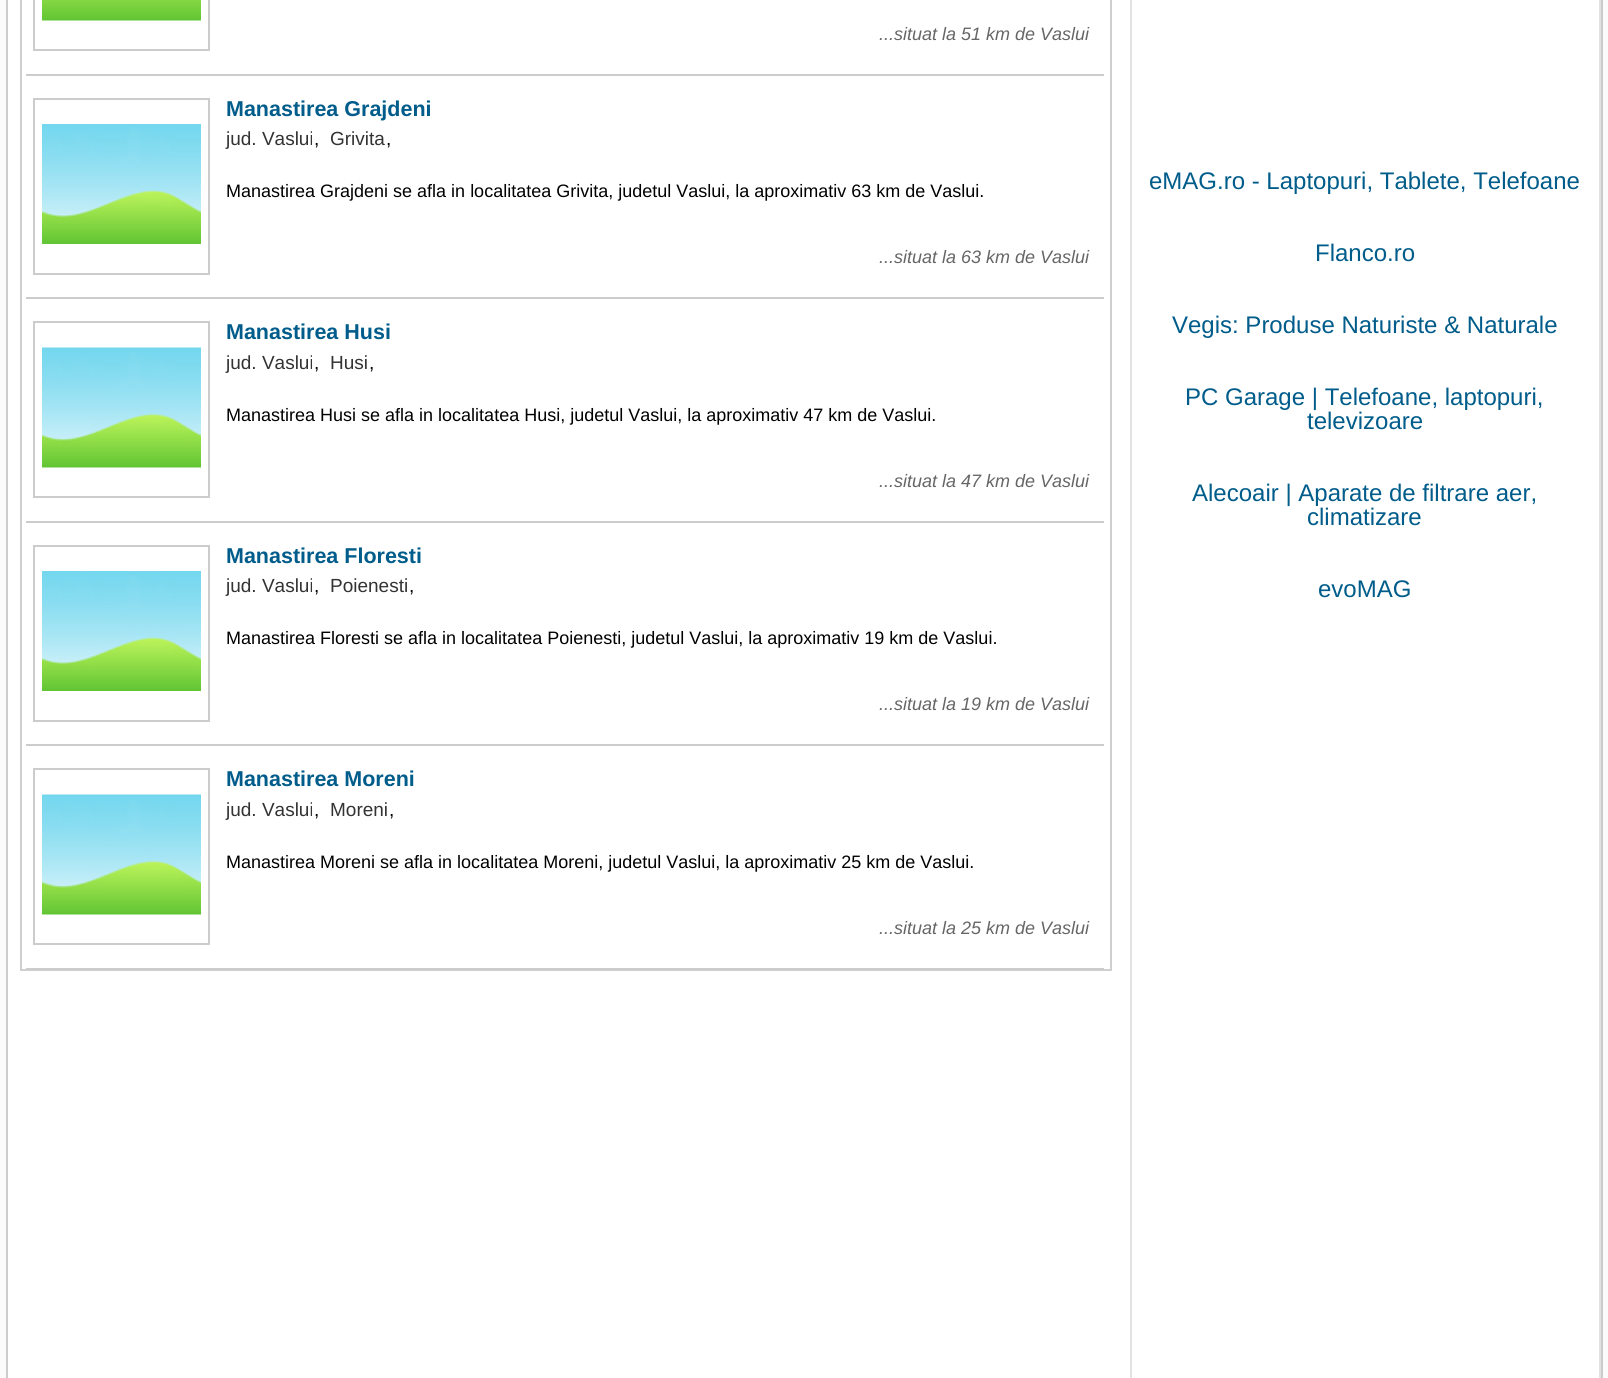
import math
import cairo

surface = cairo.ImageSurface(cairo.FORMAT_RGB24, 1608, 1378)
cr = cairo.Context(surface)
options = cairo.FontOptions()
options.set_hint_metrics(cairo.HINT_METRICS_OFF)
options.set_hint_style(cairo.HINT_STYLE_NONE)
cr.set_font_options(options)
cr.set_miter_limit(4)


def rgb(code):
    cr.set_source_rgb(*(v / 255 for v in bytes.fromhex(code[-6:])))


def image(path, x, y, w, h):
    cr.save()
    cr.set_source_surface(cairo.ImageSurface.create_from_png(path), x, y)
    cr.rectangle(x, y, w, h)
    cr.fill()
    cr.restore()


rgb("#fbfbfb")
cr.paint()
for x, y, w, h, color in [
    (8, 0, 1591, 1378, "#ffffff"),
    (1601, 0, 2, 1378, "#cccccc"),
    (6, 0, 2, 1378, "#cccccc"),
    (1110, 0, 2, 971, "#cfcfcf"),
    (20, 969, 1092, 2, "#cfcfcf"),
    (20, 0, 2, 971, "#cfcfcf"),
    (26, 74, 1078, 2, "#cccccc"),
]:
    rgb(color)
    cr.rectangle(x, y, w, h)
    cr.fill()
cr.rectangle(34, -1, 175, 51)
cr.stroke()
image("img/1.png", 42, 0, 159, 21)
cr.rectangle(26, 297, 1078, 2)
cr.fill()
cr.rectangle(34, 99, 175, 175)
cr.stroke()
image("img/2.png", 42, 124, 159, 120)
cr.rectangle(26, 521, 1078, 2)
cr.fill()
cr.rectangle(34, 322, 175, 175)
cr.stroke()
image("img/3.png", 42, 347, 159, 121)
cr.rectangle(26, 744, 1078, 2)
cr.fill()
cr.rectangle(34, 546, 175, 175)
cr.stroke()
image("img/2.png", 42, 571, 159, 120)
cr.rectangle(26, 968, 1078, 2)
cr.fill()
cr.rectangle(34, 769, 175, 175)
cr.stroke()
image("img/3.png", 42, 794, 159, 121)
cr.rectangle(1131, -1, 469, 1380)
rgb("#e2e2e2")
cr.stroke()
cr.select_font_face("Liberation Sans", cairo.FONT_SLANT_ITALIC)
cr.set_font_size(18)
rgb("#666666")
cr.move_to(879, 40)
cr.show_text("...situat la 51 km de Vaslui")
cr.select_font_face("Liberation Sans", cairo.FONT_SLANT_NORMAL, cairo.FONT_WEIGHT_BOLD)
cr.set_font_size(21.5)
rgb("#005c8a")
cr.move_to(226, 116)
cr.show_text("Manastirea Grajdeni")
cr.select_font_face("Liberation Sans")
cr.set_font_size(19)
rgb("#333333")
cr.move_to(226, 145)
cr.show_text("jud. Vaslui")
rgb("#000000")
cr.move_to(314, 145)
cr.show_text(",")
rgb("#333333")
cr.move_to(330, 145)
cr.show_text("Grivita")
rgb("#000000")
cr.move_to(386, 145)
cr.show_text(",")
cr.set_font_size(18)
cr.move_to(226, 197)
cr.show_text("Manastirea Grajdeni se afla in localitatea Grivita, judetul Vaslui, la aproximativ 63 km de Vaslui.")
cr.select_font_face("Liberation Sans", cairo.FONT_SLANT_ITALIC)
rgb("#666666")
cr.move_to(879, 263)
cr.show_text("...situat la 63 km de Vaslui")
cr.select_font_face("Liberation Sans", cairo.FONT_SLANT_NORMAL, cairo.FONT_WEIGHT_BOLD)
cr.set_font_size(21.5)
rgb("#005c8a")
cr.move_to(226, 339)
cr.show_text("Manastirea Husi")
cr.select_font_face("Liberation Sans")
cr.set_font_size(19)
rgb("#333333")
cr.move_to(226, 369)
cr.show_text("jud. Vaslui")
rgb("#000000")
cr.move_to(314, 369)
cr.show_text(",")
rgb("#333333")
cr.move_to(330, 369)
cr.show_text("Husi")
rgb("#000000")
cr.move_to(369, 369)
cr.show_text(",")
cr.set_font_size(18)
cr.move_to(226, 421)
cr.show_text("Manastirea Husi se afla in localitatea Husi, judetul Vaslui, la aproximativ 47 km de Vaslui.")
cr.select_font_face("Liberation Sans", cairo.FONT_SLANT_ITALIC)
rgb("#666666")
cr.move_to(879, 487)
cr.show_text("...situat la 47 km de Vaslui")
cr.select_font_face("Liberation Sans", cairo.FONT_SLANT_NORMAL, cairo.FONT_WEIGHT_BOLD)
cr.set_font_size(21.5)
rgb("#005c8a")
cr.move_to(226, 563)
cr.show_text("Manastirea Floresti")
cr.select_font_face("Liberation Sans")
cr.set_font_size(19)
rgb("#333333")
cr.move_to(226, 592)
cr.show_text("jud. Vaslui")
rgb("#000000")
cr.move_to(314, 592)
cr.show_text(",")
rgb("#333333")
cr.move_to(330, 592)
cr.show_text("Poienesti")
rgb("#000000")
cr.move_to(409, 592)
cr.show_text(",")
cr.set_font_size(18)
cr.move_to(226, 644)
cr.show_text("Manastirea Floresti se afla in localitatea Poienesti, judetul Vaslui, la aproximativ 19 km de Vaslui.")
cr.select_font_face("Liberation Sans", cairo.FONT_SLANT_ITALIC)
rgb("#666666")
cr.move_to(879, 710)
cr.show_text("...situat la 19 km de Vaslui")
cr.select_font_face("Liberation Sans", cairo.FONT_SLANT_NORMAL, cairo.FONT_WEIGHT_BOLD)
cr.set_font_size(21.5)
rgb("#005c8a")
cr.move_to(226, 786)
cr.show_text("Manastirea Moreni")
cr.select_font_face("Liberation Sans")
cr.set_font_size(19)
rgb("#333333")
cr.move_to(226, 816)
cr.show_text("jud. Vaslui")
rgb("#000000")
cr.move_to(314, 816)
cr.show_text(",")
rgb("#333333")
cr.move_to(330, 816)
cr.show_text("Moreni")
rgb("#000000")
cr.move_to(389, 816)
cr.show_text(",")
cr.set_font_size(18)
cr.move_to(226, 868)
cr.show_text("Manastirea Moreni se afla in localitatea Moreni, judetul Vaslui, la aproximativ 25 km de Vaslui.")
cr.select_font_face("Liberation Sans", cairo.FONT_SLANT_ITALIC)
rgb("#666666")
cr.move_to(879, 934)
cr.show_text("...situat la 25 km de Vaslui")
cr.select_font_face("Liberation Sans")
cr.set_font_size(24)
rgb("#005c8a")
for x, y, s in [
    (1149, 189, "eMAG.ro - Laptopuri, Tablete, Telefoane"),
    (1315, 261, "Flanco.ro"),
    (1172, 333, "Vegis: Produse Naturiste & Naturale"),
    (1185, 405, "PC Garage | Telefoane, laptopuri,"),
    (1307, 429, "televizoare"),
    (1192, 501, "Alecoair | Aparate de filtrare aer,"),
    (1307, 525, "climatizare"),
    (1318, 597, "evoMAG"),
]:
    cr.move_to(x, y)
    cr.show_text(s)
surface.write_to_png("page.png")
